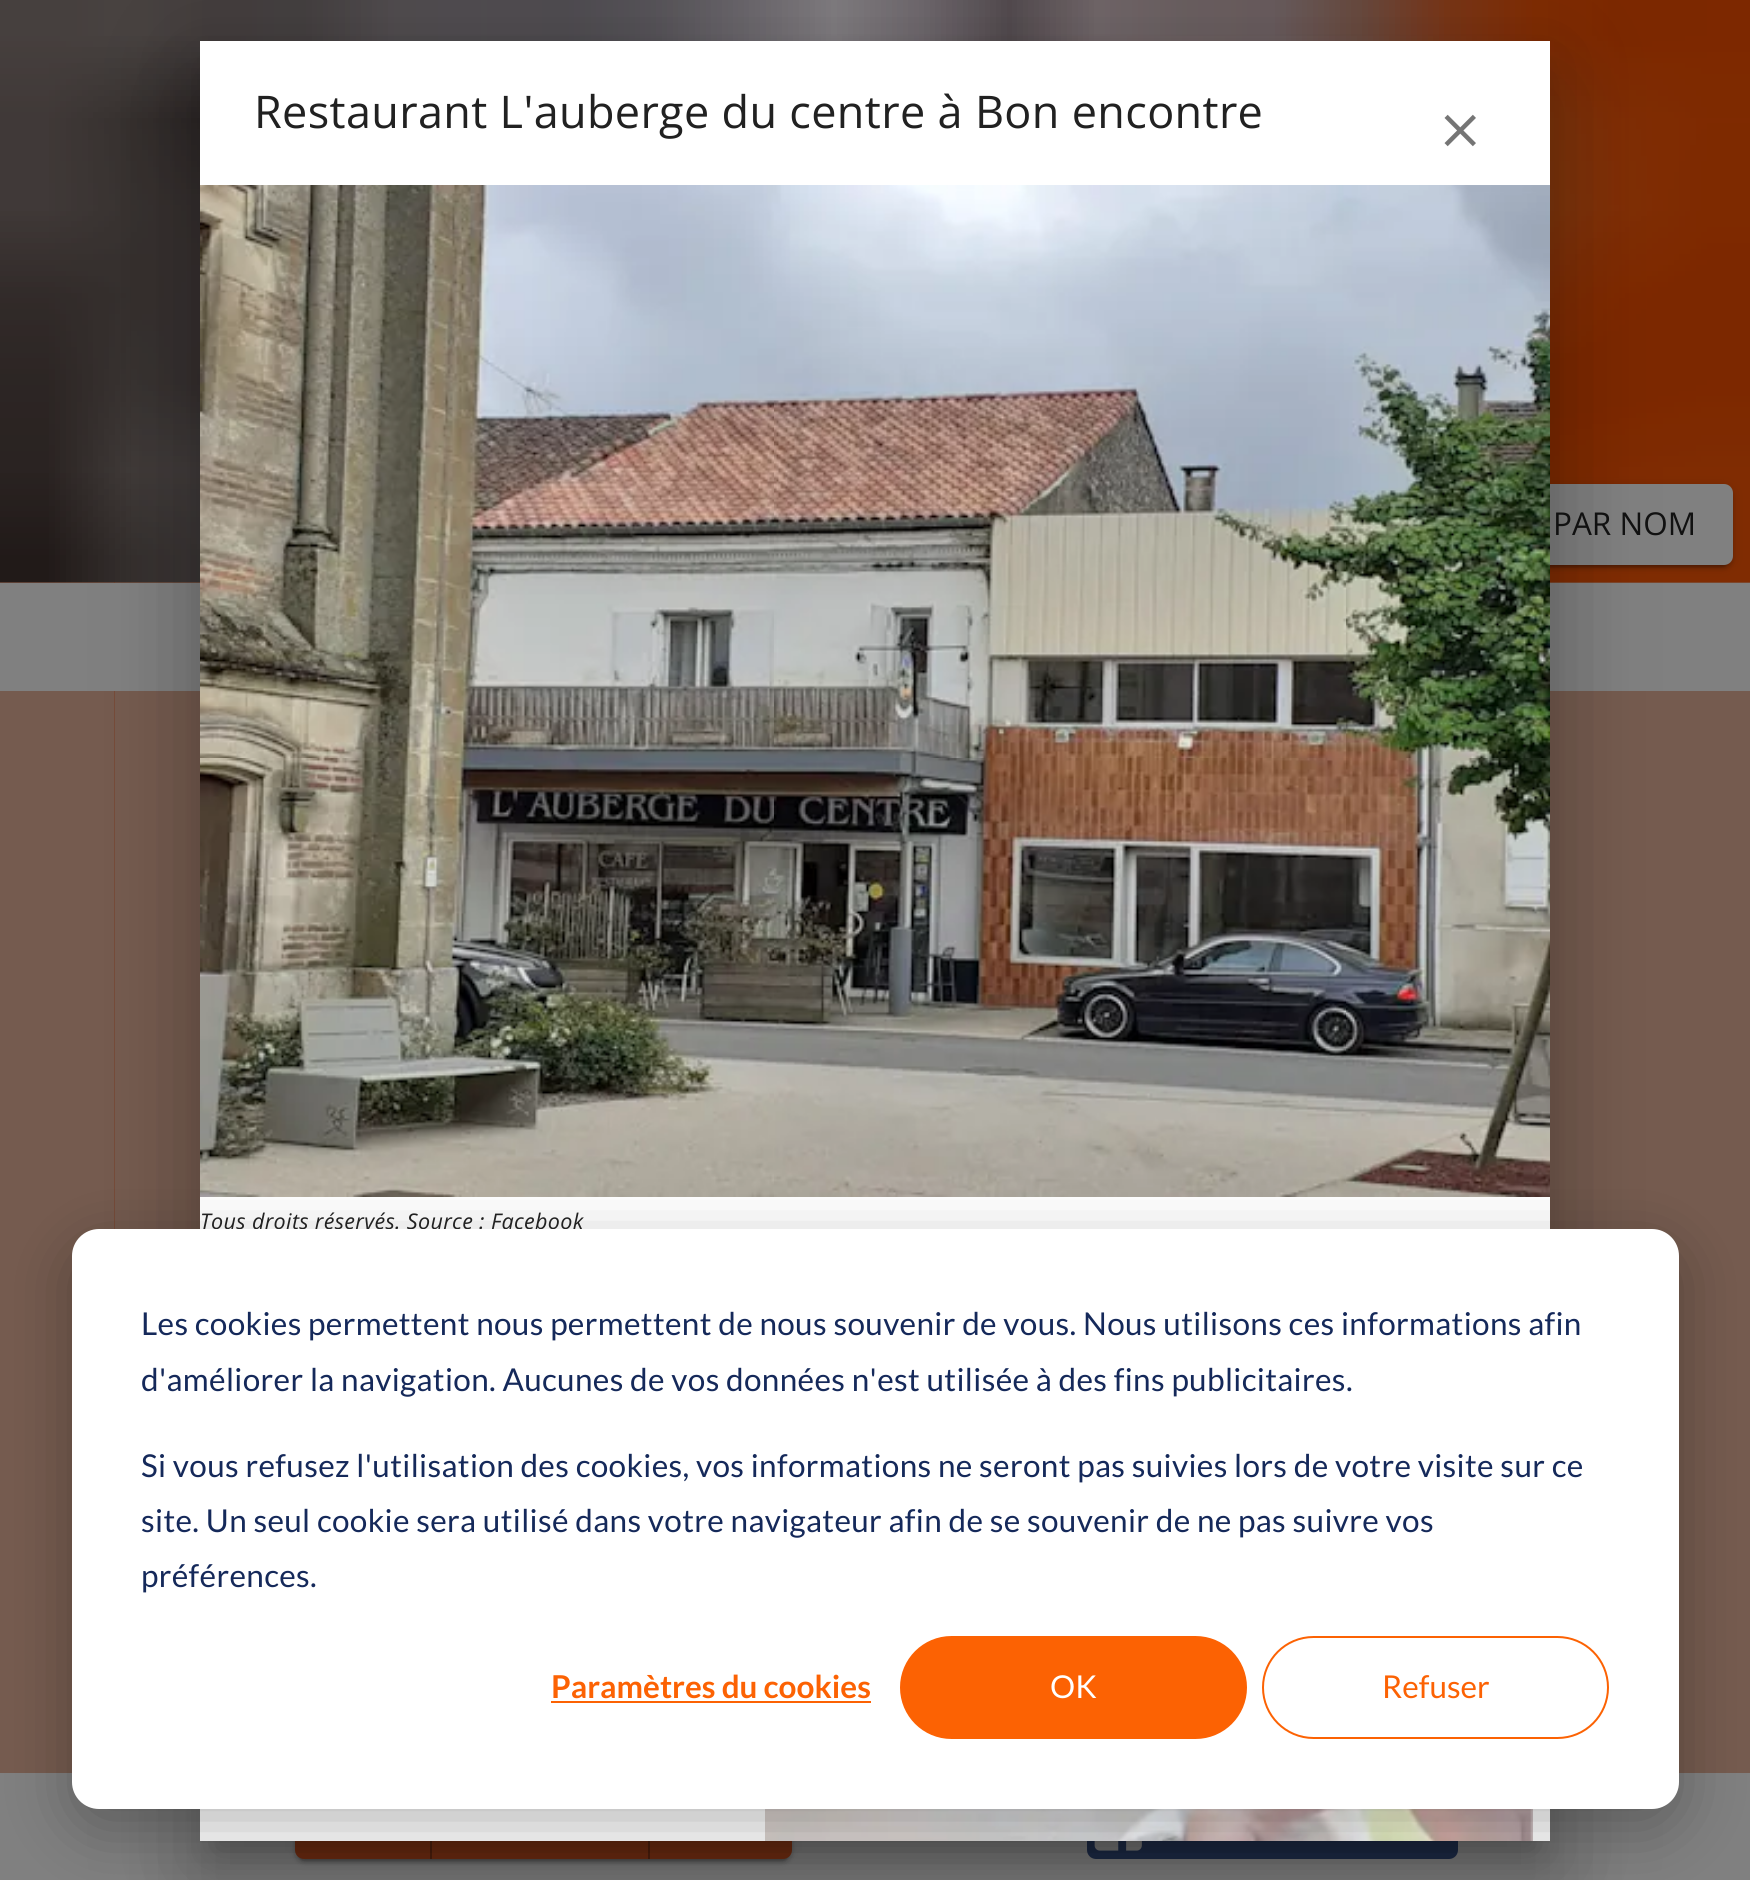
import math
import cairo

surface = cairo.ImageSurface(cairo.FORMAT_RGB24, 1750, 1880)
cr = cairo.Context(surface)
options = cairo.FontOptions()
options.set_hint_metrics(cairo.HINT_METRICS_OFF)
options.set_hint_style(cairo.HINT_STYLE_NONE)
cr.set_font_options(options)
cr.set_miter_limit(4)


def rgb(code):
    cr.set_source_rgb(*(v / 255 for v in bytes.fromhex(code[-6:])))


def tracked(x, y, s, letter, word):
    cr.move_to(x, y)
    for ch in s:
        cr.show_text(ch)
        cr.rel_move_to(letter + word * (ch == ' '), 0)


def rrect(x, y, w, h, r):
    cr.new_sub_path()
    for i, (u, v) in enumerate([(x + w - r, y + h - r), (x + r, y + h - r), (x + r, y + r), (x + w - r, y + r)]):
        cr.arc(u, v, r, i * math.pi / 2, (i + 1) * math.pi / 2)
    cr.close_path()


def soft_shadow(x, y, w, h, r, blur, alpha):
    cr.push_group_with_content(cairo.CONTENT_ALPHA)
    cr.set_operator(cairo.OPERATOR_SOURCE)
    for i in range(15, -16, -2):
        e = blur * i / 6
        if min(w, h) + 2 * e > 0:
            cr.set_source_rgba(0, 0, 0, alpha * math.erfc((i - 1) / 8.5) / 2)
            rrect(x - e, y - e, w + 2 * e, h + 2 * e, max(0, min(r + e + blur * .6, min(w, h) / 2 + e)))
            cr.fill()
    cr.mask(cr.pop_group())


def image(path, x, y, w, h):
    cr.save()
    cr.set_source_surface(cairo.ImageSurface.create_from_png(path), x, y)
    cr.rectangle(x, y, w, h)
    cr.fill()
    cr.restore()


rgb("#808080")
cr.paint()
image("img/4.png", 0, 0, 1750, 583)
rgb("#000000")
soft_shadow(1312, 486, 421, 81, 9, 5.5, 0.12)
soft_shadow(1312, 488, 421, 81, 9, 2, 0.14)
soft_shadow(1316, 495, 412, 72, 5, 1, 0.2)
rgb("#808080")
rrect(1312, 484, 421, 81, 9)
cr.fill()
rgb("#737270")
cr.rectangle(0, 691, 1750, 470)
cr.fill()
rgb("#755b4f")
cr.rectangle(0, 1161, 114, 576)
cr.rectangle(0, 1737, 72, 36)
cr.rectangle(1550, 1161, 200, 576)
cr.rectangle(115, 1161, 85, 68)
cr.fill()
rgb("#764c39")
cr.rectangle(114, 1161, 1, 68)
cr.fill()
cr.set_source_rgba(0.475, 0.192, 0.067, 0.35)
cr.rectangle(0, 582, 115, 1)
cr.fill()
cr.rectangle(114, 582, 86, 1)
cr.fill()
cr.rectangle(1550, 582, 200, 1)
cr.fill()
rgb("#755b4f")
cr.rectangle(114, 691, 86, 470)
cr.fill()
cr.set_source_rgba(0.475, 0.192, 0.067, 0.35)
cr.rectangle(0, 691, 115, 470)
cr.fill()
cr.rectangle(1550, 691, 200, 470)
cr.fill()
rgb("#755b4f")
cr.rectangle(1679, 1737, 71, 36)
cr.fill()
rgb("#000000")
soft_shadow(295, 1798, 497, 63, 9, 5.5, 0.12)
soft_shadow(295, 1800, 497, 63, 9, 2, 0.14)
soft_shadow(299, 1807, 489, 54, 5, 1, 0.2)
rgb("#783012")
cr.new_path()
cr.move_to(304, 1796)
cr.line_to(432, 1796)
cr.line_to(432, 1859)
cr.line_to(304, 1859)
cr.curve_to(299, 1859, 295, 1855, 295, 1850)
cr.line_to(295, 1805)
cr.curve_to(295, 1800, 299, 1796, 304, 1796)
cr.close_path()
cr.fill()
for x, y, w, h, color in [
    (430, 1841, 2, 18, "#54220c"),
    (432, 1841, 216, 18, "#783012"),
    (648, 1841, 2, 18, "#54220c"),
]:
    rgb(color)
    cr.rectangle(x, y, w, h)
    cr.fill()
rgb("#783012")
cr.new_path()
cr.move_to(650, 1796)
cr.line_to(783, 1796)
cr.curve_to(788, 1796, 792, 1800, 792, 1805)
cr.line_to(792, 1850)
cr.curve_to(792, 1855, 788, 1859, 783, 1859)
cr.line_to(650, 1859)
cr.close_path()
cr.fill()
rgb("#1e2d4c")
rrect(1087, 1796, 371, 63, 9)
cr.fill()
image("img/5.png", 1094, 1841, 48, 10)
rgb("#000000")
soft_shadow(182, 43, 1386, 1836, 0, 52, 0.12)
soft_shadow(194, 88, 1363, 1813, 0, 43, 0.14)
soft_shadow(216, 81, 1319, 1769, 0, 17, 0.2)
rgb("#ffffff")
cr.rectangle(200, 41, 1350, 1800)
cr.fill()
image("img/1.png", 1444, 114, 32, 33)
image("img/2.png", 200, 185, 1350, 1012)
image("img/3.png", 765, 1809, 768, 32)
rgb("#000000")
soft_shadow(72, 1247, 1607, 580, 27, 31.5, 0.28)
cr.select_font_face("Open Sans")
cr.set_font_size(45)
rgb("#212121")
tracked(254, 128, "Restaurant L'auberge du centre à Bon encontre", 0.34, 0)
cr.select_font_face("Open Sans", cairo.FONT_SLANT_ITALIC)
cr.set_font_size(21.6)
tracked(200, 1229, "Tous droits réservés. Source : Facebook", 0.34, 0)
cr.select_font_face("Open Sans")
cr.set_font_size(31.5)
rgb("#111111")
cr.move_to(1553, 535)
cr.show_text("PAR NOM")
rgb("#ffffff")
rrect(72, 1229, 1607, 580, 27)
cr.fill()
cr.select_font_face("Lato")
rgb("#15295a")
for x, y, s in [
    (141, 1335, "Les cookies permettent nous permettent de nous souvenir de vous. Nous utilisons ces informations afin"),
    (141, 1391, "d'améliorer la navigation. Aucunes de vos données n'est utilisée à des fins publicitaires."),
    (141, 1477, "Si vous refusez l'utilisation des cookies, vos informations ne seront pas suivies lors de votre visite sur ce"),
    (141, 1532, "site. Un seul cookie sera utilisé dans votre navigateur afin de se souvenir de ne pas suivre vos"),
    (141, 1587, "préférences."),
]:
    tracked(x, y, s, 0.34, 0)
cr.select_font_face("Lato", cairo.FONT_SLANT_NORMAL, cairo.FONT_WEIGHT_BOLD)
rgb("#fc6203")
cr.move_to(551, 1698)
cr.show_text("Paramètres du cookies")
cr.rectangle(551, 1701, 320, 2)
cr.fill()
rrect(901, 1637, 345, 101, 50.5)
cr.fill_preserve()
cr.stroke()
cr.select_font_face("Lato")
rgb("#ffffff")
cr.move_to(1050, 1698)
cr.show_text("OK")
rrect(1263, 1637, 345, 101, 50.5)
rgb("#fc6203")
cr.stroke()
cr.move_to(1382, 1698)
cr.show_text("Refuser")
surface.write_to_png("page.png")
